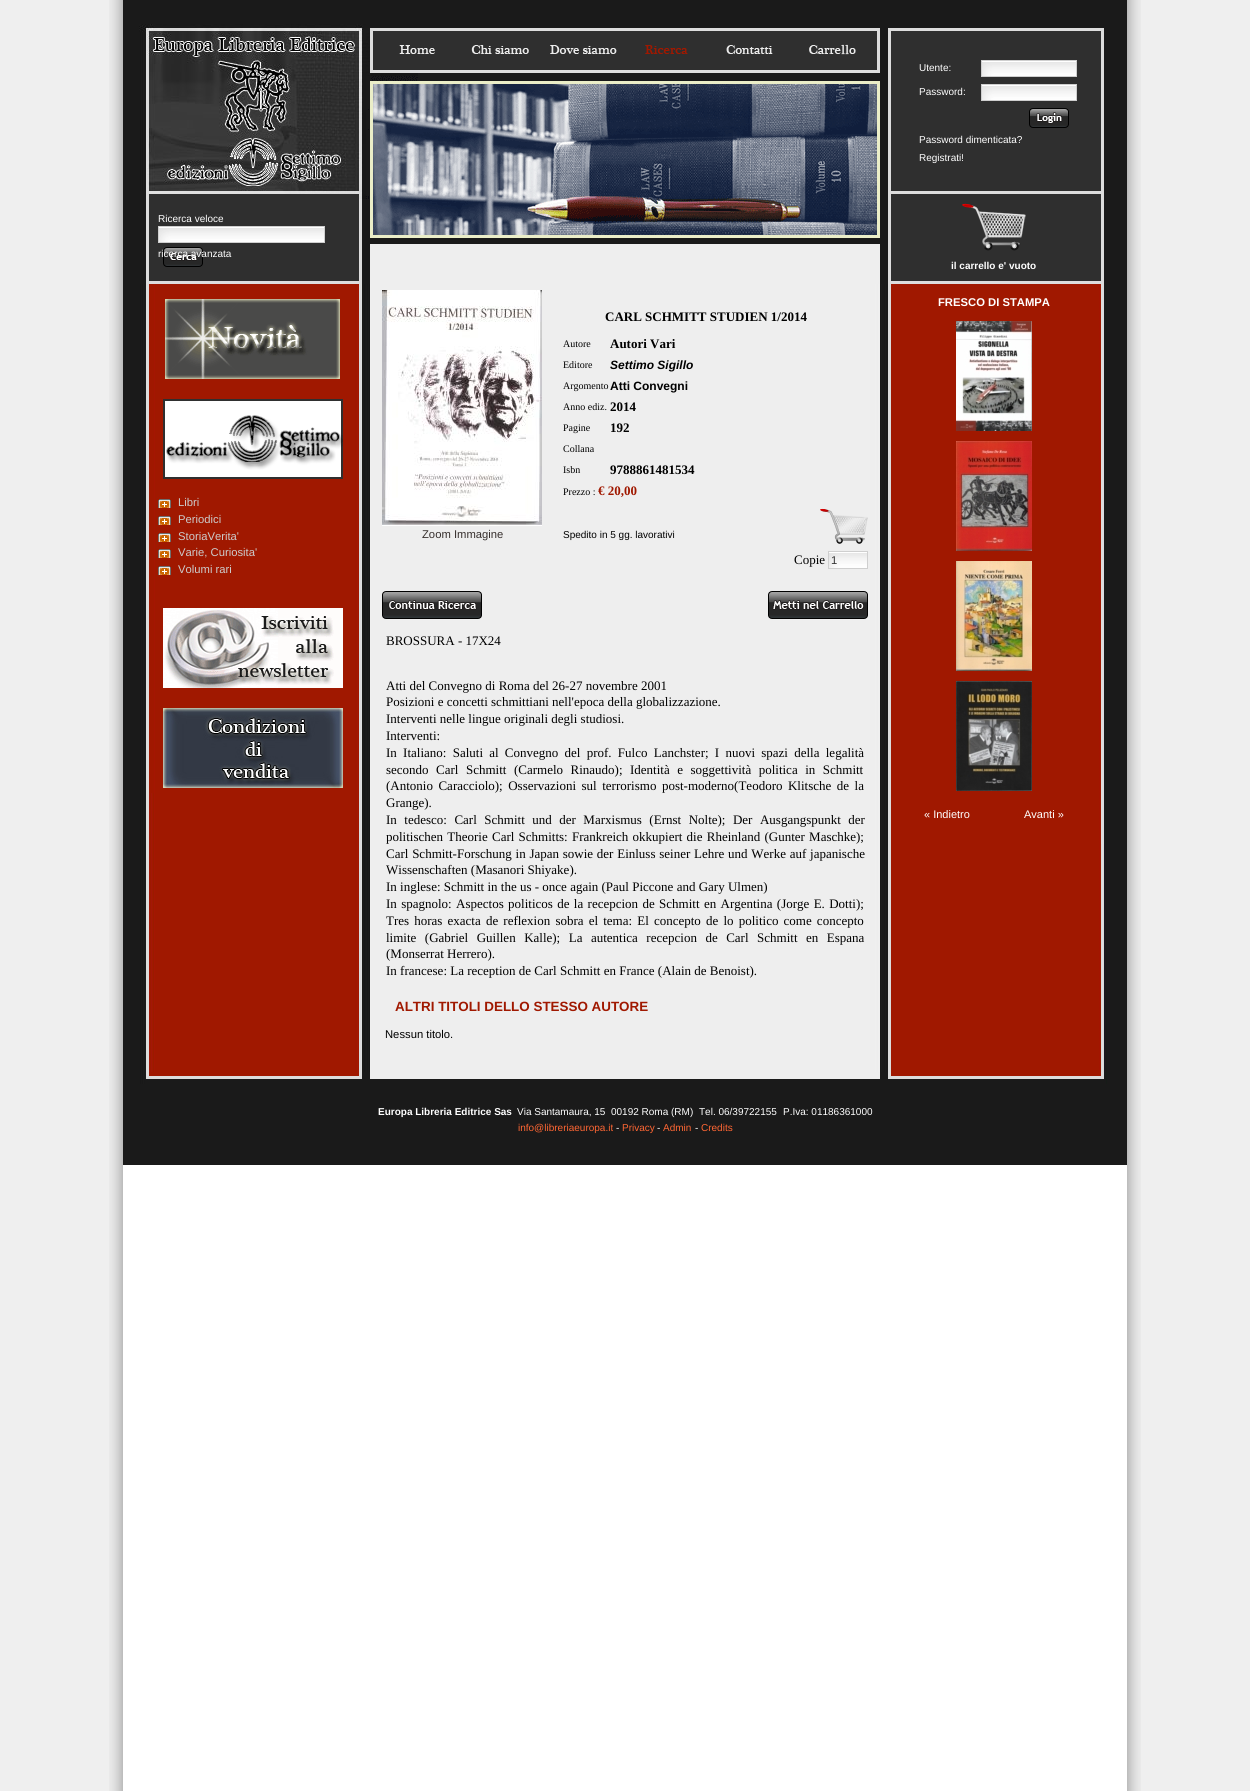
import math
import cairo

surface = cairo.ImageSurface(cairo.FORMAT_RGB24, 1250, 1791)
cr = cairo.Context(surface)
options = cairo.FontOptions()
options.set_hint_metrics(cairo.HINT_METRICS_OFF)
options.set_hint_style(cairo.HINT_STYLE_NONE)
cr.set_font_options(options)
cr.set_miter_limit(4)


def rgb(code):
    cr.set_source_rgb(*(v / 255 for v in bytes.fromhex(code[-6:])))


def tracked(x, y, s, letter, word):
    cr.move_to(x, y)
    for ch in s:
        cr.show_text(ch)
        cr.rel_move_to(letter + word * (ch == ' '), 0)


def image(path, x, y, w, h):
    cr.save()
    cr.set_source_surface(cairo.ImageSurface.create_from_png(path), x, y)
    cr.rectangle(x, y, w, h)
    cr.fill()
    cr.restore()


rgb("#efefef")
cr.paint()
image("img/1.png", 109, 0, 1032, 1791)
image("img/2.png", 123, 0, 243, 191)
image("img/3.png", 123, 191, 243, 93)
rgb("#ffffff")
cr.rectangle(159, 227, 165, 1)
cr.fill()
image("img/4.png", 159, 228, 165, 14)
cr.rectangle(158.5, 226.5, 166, 16)
rgb("#cfcfcf")
cr.set_line_width(1)
cr.stroke()
image("img/5.png", 163, 247, 40, 20)
image("img/6.png", 366, 0, 518, 76)
image("img/7.png", 399, 45, 36, 9)
image("img/8.png", 471, 45, 58, 9)
image("img/9.png", 550, 45, 67, 9)
image("img/10.png", 645, 45, 43, 9)
image("img/11.png", 726, 45, 47, 9)
image("img/12.png", 809, 44, 47, 11)
image("img/13.png", 366, 76, 518, 168)
image("img/14.png", 366, 244, 518, 40)
image("img/15.png", 884, 0, 243, 191)
rgb("#ffffff")
cr.rectangle(982, 61, 94, 1)
cr.fill()
image("img/16.png", 982, 62, 94, 14)
cr.rectangle(981.5, 60.5, 95, 16)
rgb("#cfcfcf")
cr.stroke()
rgb("#ffffff")
cr.rectangle(982, 85, 94, 1)
cr.fill()
image("img/16.png", 982, 86, 94, 14)
cr.rectangle(981.5, 84.5, 95, 16)
rgb("#cfcfcf")
cr.stroke()
image("img/17.png", 1029, 108, 40, 20)
image("img/18.png", 884, 191, 243, 93)
image("img/19.png", 962, 203, 64, 48)
image("img/20.png", 123, 284, 1004, 800)
rgb("#a01800")
cr.rectangle(149, 284, 5, 509)
cr.fill()
image("img/21.png", 165, 299, 175, 80)
image("img/22.png", 163, 399, 180, 80)
image("img/23.png", 158, 499, 13, 9)
image("img/23.png", 158, 516, 13, 9)
image("img/23.png", 158, 533, 13, 9)
image("img/23.png", 158, 549, 13, 9)
image("img/23.png", 158, 566, 13, 9)
image("img/24.png", 163, 608, 180, 80)
image("img/25.png", 163, 708, 180, 80)
image("img/26.png", 382, 290, 160, 236)
image("img/27.png", 820, 508, 48, 36)
rgb("#ffffff")
cr.rectangle(829, 552, 38, 1)
cr.fill()
image("img/28.png", 829, 553, 38, 15)
cr.rectangle(828.5, 551.5, 39, 17)
rgb("#cfcfcf")
cr.stroke()
image("img/29.png", 382, 591, 100, 28)
image("img/30.png", 768, 591, 100, 28)
image("img/31.png", 1101, 284, 5, 560)
image("img/32.png", 956, 321, 76, 110)
image("img/33.png", 956, 441, 76, 110)
image("img/34.png", 956, 561, 76, 110)
image("img/35.png", 956, 681, 76, 110)
image("img/36.png", 146, 1072, 960, 12)
rgb("#1a1a1a")
cr.rectangle(123, 1084, 1004, 81)
cr.fill()
cr.select_font_face("Liberation Sans")
cr.set_font_size(10)
rgb("#ffffff")
for x, y, s in [
    (158, 222, "Ricerca veloce"),
    (158, 257, "ricerca avanzata"),
    (919, 71, "Utente:"),
    (919, 95, "Password:"),
    (919, 143, "Password dimenticata?"),
    (919, 161, "Registrati!"),
]:
    cr.move_to(x, y)
    cr.show_text(s)
cr.select_font_face("Liberation Sans", cairo.FONT_SLANT_NORMAL, cairo.FONT_WEIGHT_BOLD)
cr.move_to(951, 269)
cr.show_text("il carrello e' vuoto")
cr.select_font_face("Liberation Sans")
cr.set_font_size(11.25)
rgb("#cccccc")
for x, y, s in [
    (178, 506, "Libri"),
    (178, 523, "Periodici"),
    (178, 540, "StoriaVerita'"),
    (178, 556, "Varie, Curiosita'"),
    (178, 573, "Volumi rari"),
]:
    cr.move_to(x, y)
    cr.show_text(s)
cr.select_font_face("Liberation Serif", cairo.FONT_SLANT_NORMAL, cairo.FONT_WEIGHT_BOLD)
cr.set_font_size(13)
rgb("#000000")
cr.move_to(605, 321)
cr.show_text("CARL SCHMITT STUDIEN 1/2014")
cr.select_font_face("Liberation Serif")
cr.set_font_size(10)
cr.move_to(563, 347)
cr.show_text("Autore")
cr.select_font_face("Liberation Serif", cairo.FONT_SLANT_NORMAL, cairo.FONT_WEIGHT_BOLD)
cr.set_font_size(13)
cr.move_to(610, 348)
cr.show_text("Autori Vari")
cr.select_font_face("Liberation Serif")
cr.set_font_size(10)
cr.move_to(563, 368)
cr.show_text("Editore")
cr.select_font_face("Liberation Sans", cairo.FONT_SLANT_ITALIC, cairo.FONT_WEIGHT_BOLD)
cr.set_font_size(12)
cr.move_to(610, 369)
cr.show_text("Settimo Sigillo")
cr.select_font_face("Liberation Serif")
cr.set_font_size(10)
cr.move_to(563, 389)
cr.show_text("Argomento")
cr.select_font_face("Liberation Sans", cairo.FONT_SLANT_NORMAL, cairo.FONT_WEIGHT_BOLD)
cr.set_font_size(12)
cr.move_to(610, 390)
cr.show_text("Atti Convegni")
cr.select_font_face("Liberation Serif")
cr.set_font_size(10)
cr.move_to(563, 410)
cr.show_text("Anno ediz.")
cr.select_font_face("Liberation Serif", cairo.FONT_SLANT_NORMAL, cairo.FONT_WEIGHT_BOLD)
cr.set_font_size(13)
cr.move_to(610, 411)
cr.show_text("2014")
cr.select_font_face("Liberation Serif")
cr.set_font_size(10)
cr.move_to(563, 431)
cr.show_text("Pagine")
cr.select_font_face("Liberation Serif", cairo.FONT_SLANT_NORMAL, cairo.FONT_WEIGHT_BOLD)
cr.set_font_size(13)
cr.move_to(610, 432)
cr.show_text("192")
cr.select_font_face("Liberation Serif")
cr.set_font_size(10)
cr.move_to(563, 452)
cr.show_text("Collana")
cr.move_to(563, 473)
cr.show_text("Isbn")
cr.select_font_face("Liberation Serif", cairo.FONT_SLANT_NORMAL, cairo.FONT_WEIGHT_BOLD)
cr.set_font_size(13)
cr.move_to(610, 474)
cr.show_text("9788861481534")
cr.select_font_face("Liberation Serif")
cr.set_font_size(10)
cr.move_to(563, 495)
cr.show_text("Prezzo :")
cr.select_font_face("Liberation Serif", cairo.FONT_SLANT_NORMAL, cairo.FONT_WEIGHT_BOLD)
cr.set_font_size(13)
rgb("#a01800")
cr.move_to(598, 495)
cr.show_text("€ 20,00")
cr.select_font_face("Liberation Sans")
cr.set_font_size(11.25)
rgb("#362f2d")
cr.move_to(422, 538)
cr.show_text("Zoom Immagine")
cr.set_font_size(10)
rgb("#000000")
cr.move_to(563, 538)
cr.show_text("Spedito in 5 gg. lavorativi")
cr.select_font_face("Liberation Serif")
cr.set_font_size(13)
cr.move_to(794, 564)
cr.show_text("Copie")
cr.select_font_face("Liberation Sans")
cr.set_font_size(11.25)
rgb("#333333")
cr.move_to(831, 564)
cr.show_text("1")
cr.select_font_face("Liberation Serif")
cr.set_font_size(13)
rgb("#000000")
for x, y, s in [
    (386, 645, "BROSSURA - 17X24"),
    (386, 690, "Atti del Convegno di Roma del 26-27 novembre 2001"),
    (386, 706, "Posizioni e concetti schmittiani nell'epoca della globalizzazione."),
    (386, 723, "Interventi nelle lingue originali degli studiosi."),
    (386, 740, "Interventi:"),
]:
    cr.move_to(x, y)
    cr.show_text(s)
tracked(386, 757, "In Italiano: Saluti al Convegno del prof. Fulco Lanchster; I nuovi spazi della legalità", 0, 3)
tracked(386, 774, "secondo Carl Schmitt (Carmelo Rinaudo); Identità e soggettività politica in Schmitt", 0, 4.25)
tracked(386, 790, "(Antonio Caracciolo); Osservazioni sul terrorismo post-moderno(Teodoro Klitsche de la", 0, 2.25)
cr.move_to(386, 807)
cr.show_text("Grange).")
tracked(386, 824, "In tedesco: Carl Schmitt und der Marxismus (Ernst Nolte); Der Ausgangspunkt der", 0, 4.25)
tracked(386, 841, "politischen Theorie Carl Schmitts: Frankreich okkupiert die Rheinland (Gunter Maschke);", 0, 1)
tracked(386, 858, "Carl Schmitt-Forschung in Japan sowie der Einluss seiner Lehre und Werke auf japanische", 0, 0.5)
cr.move_to(386, 874)
cr.show_text("Wissenschaften (Masanori Shiyake).")
cr.move_to(386, 891)
cr.show_text("In inglese: Schmitt in the us - once again (Paul Piccone and Gary Ulmen)")
tracked(386, 908, "In spagnolo: Aspectos politicos de la recepcion de Schmitt en Argentina (Jorge E. Dotti);", 0, 1.1)
tracked(386, 925, "Tres horas exacta de reflexion sobra el tema: El concepto de lo politico come concepto", 0, 1.9)
tracked(386, 942, "limite (Gabriel Guillen Kalle); La autentica recepcion de Carl Schmitt en Espana", 0, 5.25)
cr.move_to(386, 958)
cr.show_text("(Monserrat Herrero).")
cr.move_to(386, 975)
cr.show_text("In francese: La reception de Carl Schmitt en France (Alain de Benoist).")
cr.select_font_face("Liberation Sans", cairo.FONT_SLANT_NORMAL, cairo.FONT_WEIGHT_BOLD)
cr.set_font_size(13.4)
rgb("#a01800")
cr.move_to(395, 1011)
cr.show_text("ALTRI TITOLI DELLO STESSO AUTORE")
cr.select_font_face("Liberation Sans")
cr.set_font_size(11.25)
rgb("#000000")
cr.move_to(385, 1038)
cr.show_text("Nessun titolo.")
cr.select_font_face("Liberation Sans", cairo.FONT_SLANT_NORMAL, cairo.FONT_WEIGHT_BOLD)
rgb("#ffffff")
cr.move_to(938, 306)
cr.show_text("FRESCO DI STAMPA")
cr.select_font_face("Liberation Sans")
cr.set_font_size(11)
cr.move_to(924, 818)
cr.show_text("« Indietro")
cr.move_to(1024, 818)
cr.show_text("Avanti »")
cr.select_font_face("Liberation Sans", cairo.FONT_SLANT_NORMAL, cairo.FONT_WEIGHT_BOLD)
cr.set_font_size(10)
cr.move_to(378, 1115)
cr.show_text("Europa Libreria Editrice Sas")
cr.select_font_face("Liberation Sans")
for x, y, s in [
    (517, 1115, "Via Santamaura, 15"),
    (611, 1115, "00192 Roma (RM)"),
    (699, 1115, "Tel. 06/39722155"),
    (783, 1115, "P.Iva: 01186361000"),
]:
    cr.move_to(x, y)
    cr.show_text(s)
rgb("#ff6633")
cr.move_to(518, 1131)
cr.show_text("info@libreriaeuropa.it")
rgb("#ffffff")
cr.move_to(616, 1131)
cr.show_text("-")
rgb("#ff6633")
cr.move_to(622, 1131)
cr.show_text("Privacy")
rgb("#ffffff")
cr.move_to(657, 1131)
cr.show_text("-")
rgb("#ff6633")
cr.move_to(663, 1131)
cr.show_text("Admin")
rgb("#ffffff")
cr.move_to(695, 1131)
cr.show_text("-")
rgb("#ff6633")
cr.move_to(701, 1131)
cr.show_text("Credits")
surface.write_to_png("page.png")
